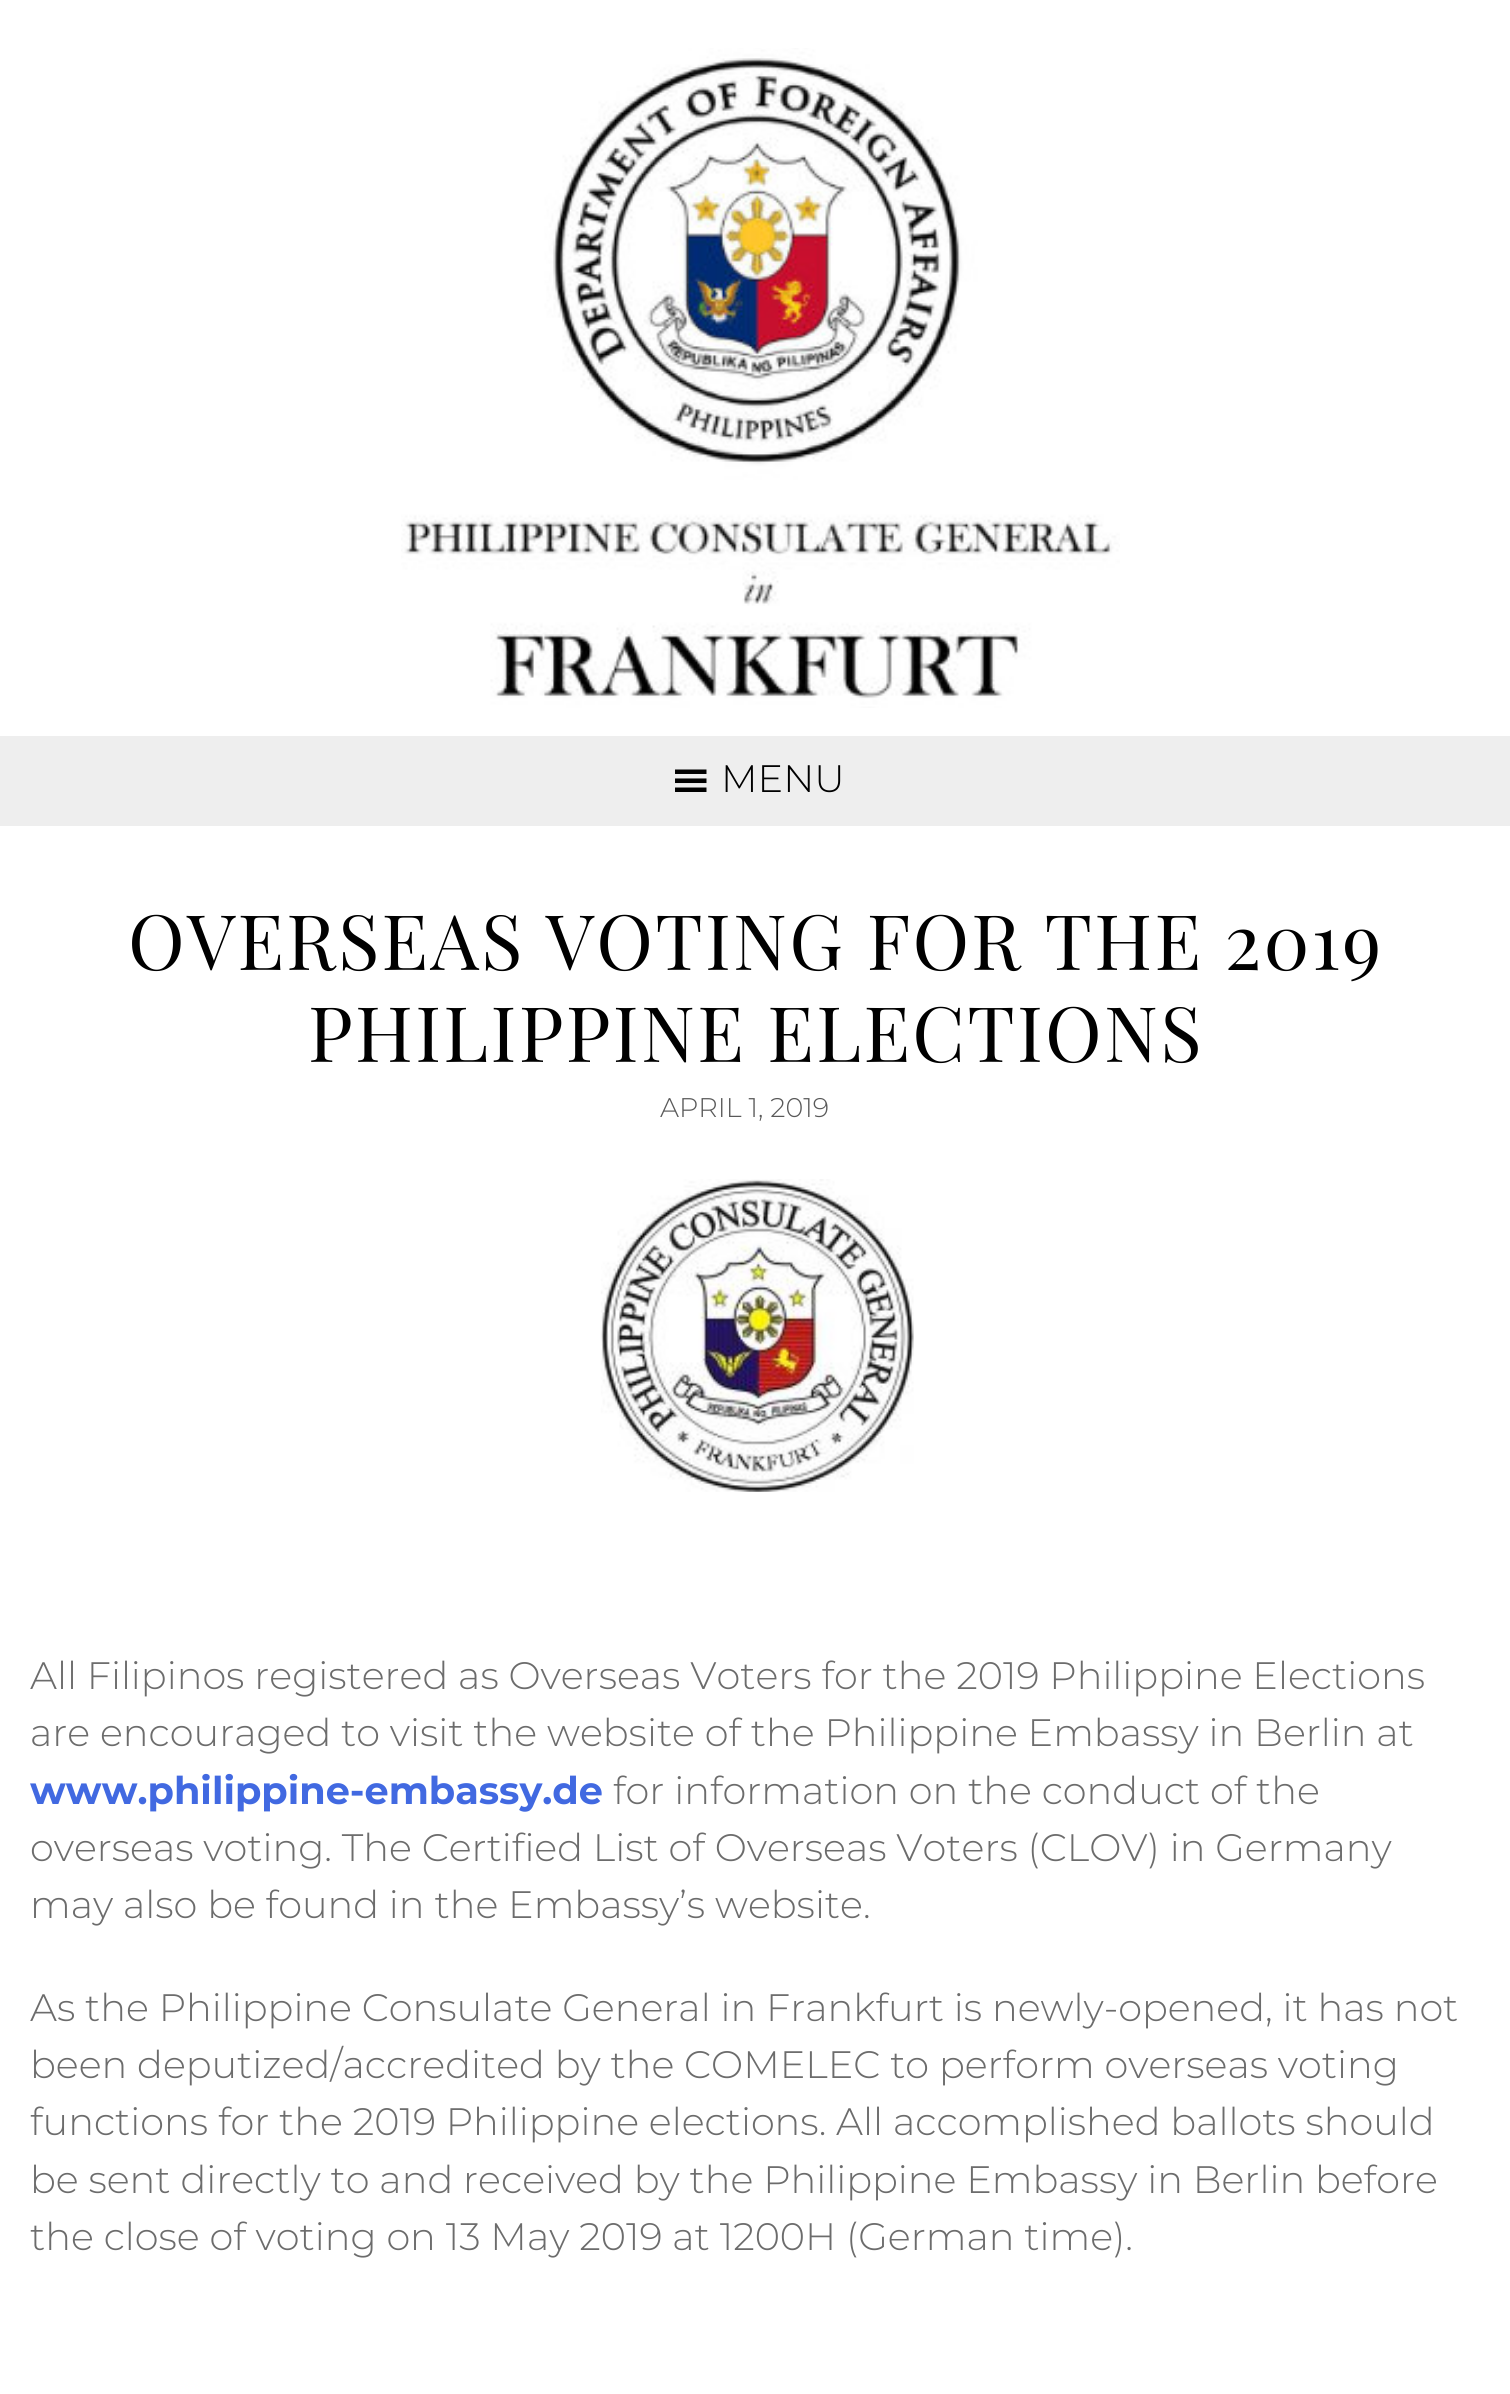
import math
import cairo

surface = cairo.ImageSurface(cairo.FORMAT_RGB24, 1510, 2394)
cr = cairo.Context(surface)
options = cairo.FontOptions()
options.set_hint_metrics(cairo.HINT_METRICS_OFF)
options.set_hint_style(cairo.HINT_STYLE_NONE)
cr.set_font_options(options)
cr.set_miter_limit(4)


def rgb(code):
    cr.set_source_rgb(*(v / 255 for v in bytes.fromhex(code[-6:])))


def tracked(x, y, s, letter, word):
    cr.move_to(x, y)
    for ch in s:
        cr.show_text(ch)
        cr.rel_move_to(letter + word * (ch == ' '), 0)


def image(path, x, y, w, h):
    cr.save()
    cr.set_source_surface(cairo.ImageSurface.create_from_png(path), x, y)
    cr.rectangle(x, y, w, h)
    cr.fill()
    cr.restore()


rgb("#ffffff")
cr.paint()
image("img/1.png", 401, 48, 719, 660)
rgb("#eeeeee")
cr.rectangle(0, 736, 1510, 90)
cr.fill()
image("img/2.png", 675, 769, 32, 23)
image("img/3.png", 600, 1179, 314, 313)
cr.select_font_face("Montserrat Light")
cr.set_font_size(38.25)
rgb("#000000")
cr.move_to(721, 792)
cr.show_text("MENU")
cr.select_font_face("Playfair Display")
cr.set_font_size(76.5)
tracked(128, 970, "OVERSEAS VOTING FOR THE 2019", 2.25, 0)
tracked(308, 1062, "PHILIPPINE ELECTIONS", 2.25, 0)
cr.select_font_face("Montserrat Light")
cr.set_font_size(27)
rgb("#595959")
cr.move_to(660, 1117)
cr.show_text("APRIL 1, 2019")
cr.set_font_size(38.25)
rgb("#6c6c6c")
cr.move_to(30, 1689)
cr.show_text("All Filipinos registered as Overseas Voters for the 2019 Philippine Elections")
cr.move_to(30, 1746)
cr.show_text("are encouraged to visit the website of the Philippine Embassy in Berlin at")
cr.select_font_face("Montserrat", cairo.FONT_SLANT_NORMAL, cairo.FONT_WEIGHT_BOLD)
rgb("#4169e1")
cr.move_to(30, 1804)
cr.show_text("www.philippine-embassy.de")
cr.select_font_face("Montserrat Light")
rgb("#6c6c6c")
for x, y, s in [
    (613, 1804, "for information on the conduct of the"),
    (30, 1861, "overseas voting. The Certified List of Overseas Voters (CLOV) in Germany"),
    (30, 1918, "may also be found in the Embassy’s website."),
    (30, 2021, "As the Philippine Consulate General in Frankfurt is newly-opened, it has not"),
    (30, 2078, "been deputized/accredited by the COMELEC to perform overseas voting"),
    (30, 2135, "functions for the 2019 Philippine elections. All accomplished ballots should"),
    (30, 2193, "be sent directly to and received by the Philippine Embassy in Berlin before"),
    (30, 2250, "the close of voting on 13 May 2019 at 1200H (German time)."),
]:
    cr.move_to(x, y)
    cr.show_text(s)
surface.write_to_png("page.png")
